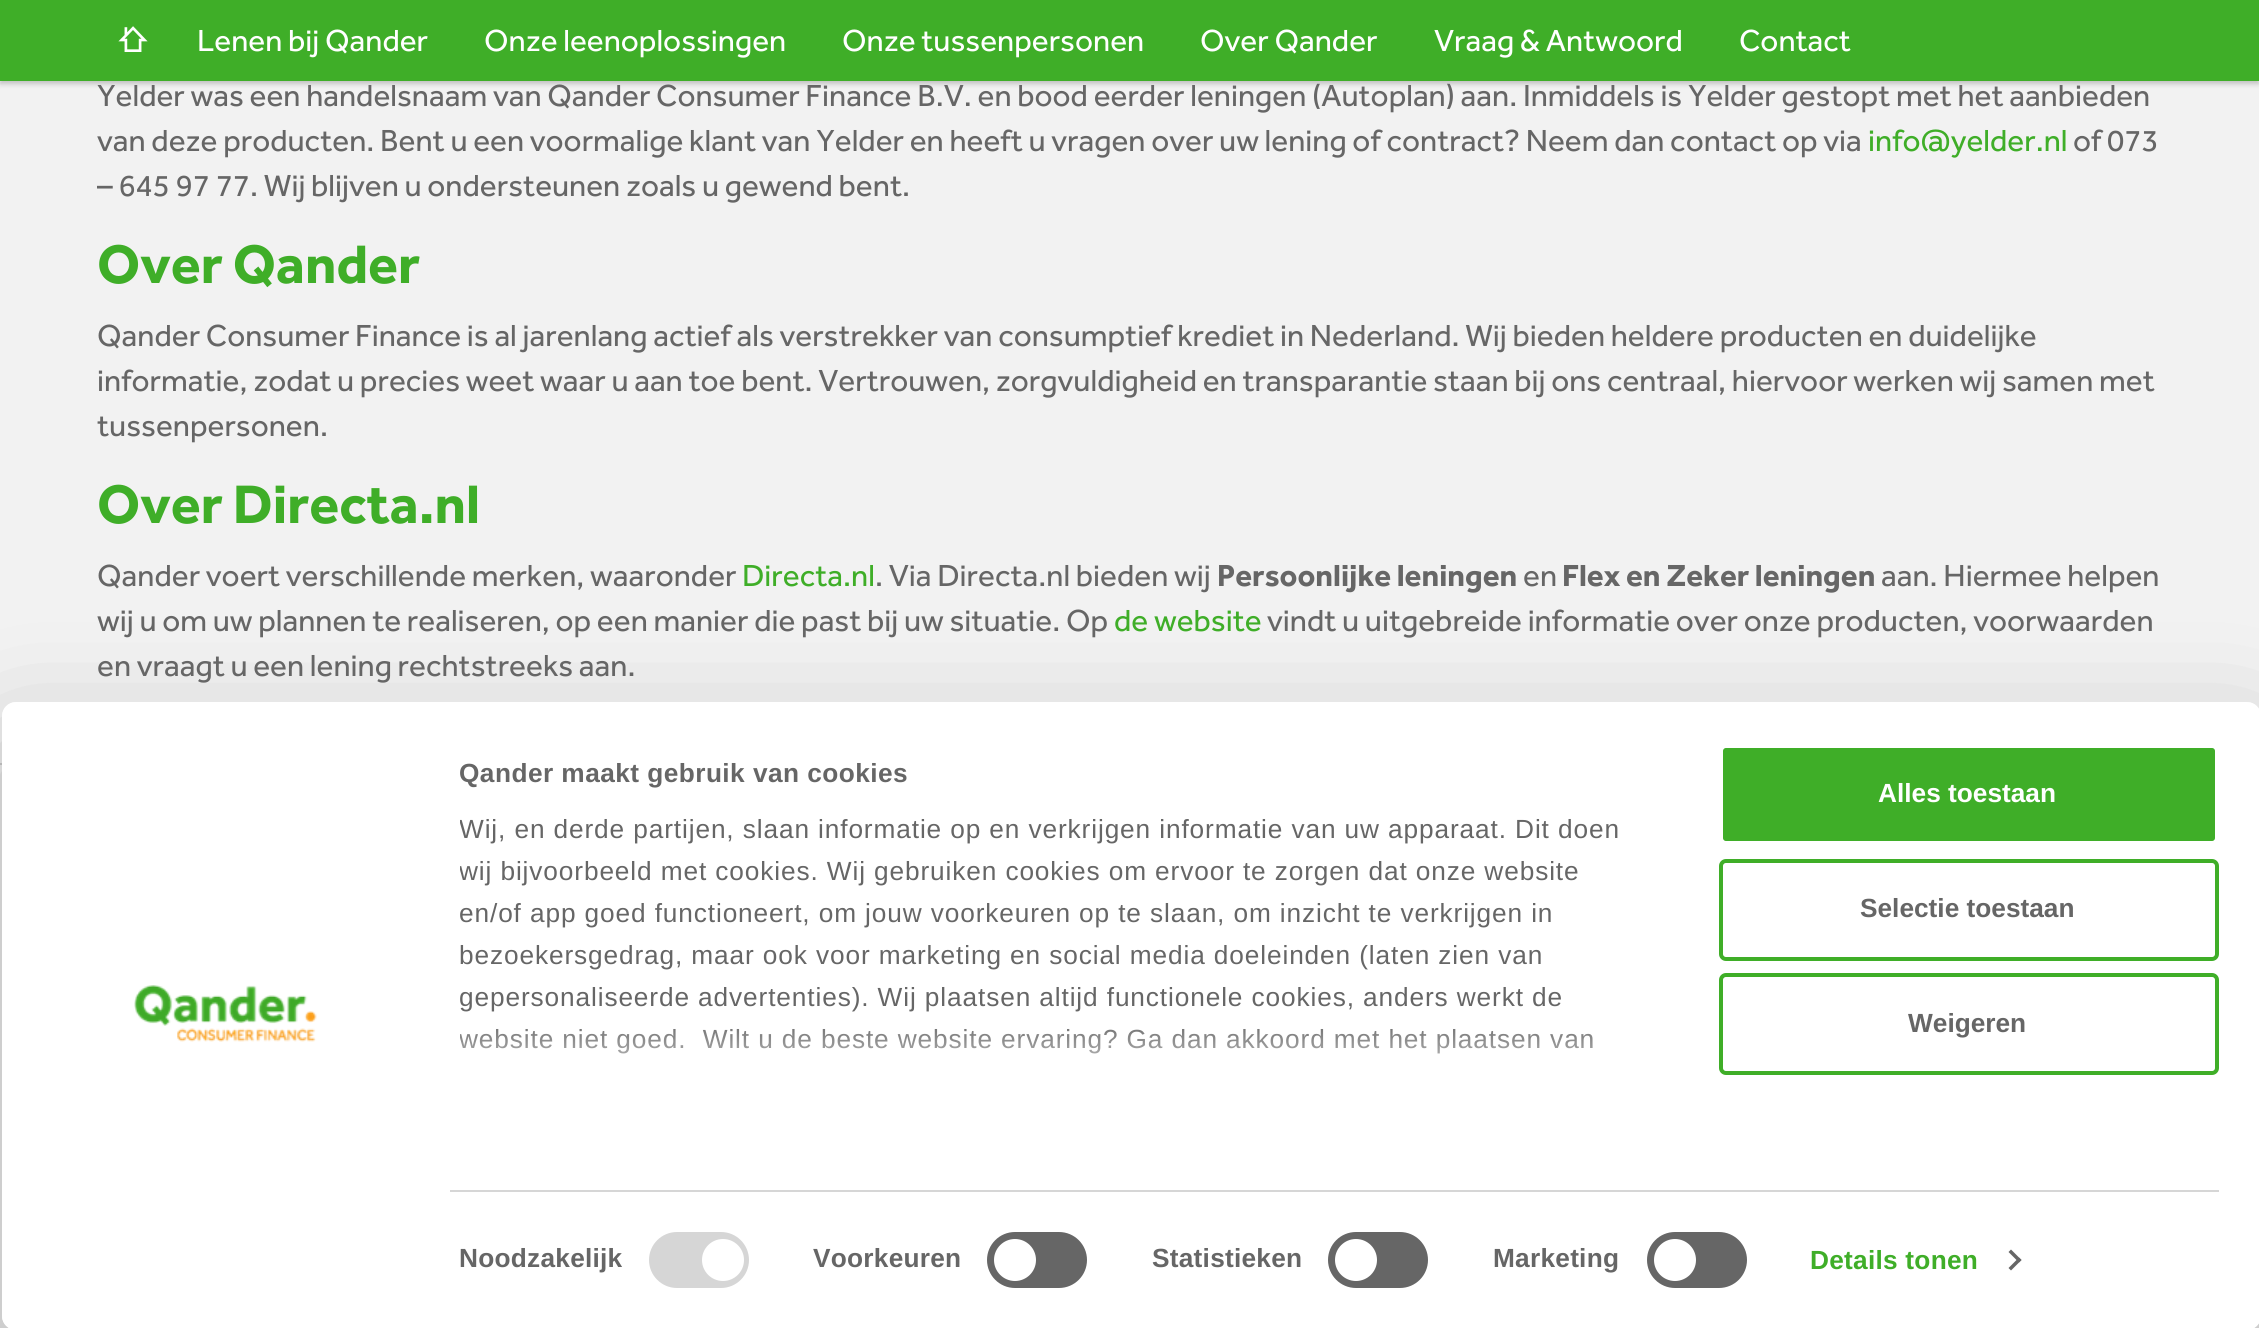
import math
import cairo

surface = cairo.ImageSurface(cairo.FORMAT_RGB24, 2259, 1328)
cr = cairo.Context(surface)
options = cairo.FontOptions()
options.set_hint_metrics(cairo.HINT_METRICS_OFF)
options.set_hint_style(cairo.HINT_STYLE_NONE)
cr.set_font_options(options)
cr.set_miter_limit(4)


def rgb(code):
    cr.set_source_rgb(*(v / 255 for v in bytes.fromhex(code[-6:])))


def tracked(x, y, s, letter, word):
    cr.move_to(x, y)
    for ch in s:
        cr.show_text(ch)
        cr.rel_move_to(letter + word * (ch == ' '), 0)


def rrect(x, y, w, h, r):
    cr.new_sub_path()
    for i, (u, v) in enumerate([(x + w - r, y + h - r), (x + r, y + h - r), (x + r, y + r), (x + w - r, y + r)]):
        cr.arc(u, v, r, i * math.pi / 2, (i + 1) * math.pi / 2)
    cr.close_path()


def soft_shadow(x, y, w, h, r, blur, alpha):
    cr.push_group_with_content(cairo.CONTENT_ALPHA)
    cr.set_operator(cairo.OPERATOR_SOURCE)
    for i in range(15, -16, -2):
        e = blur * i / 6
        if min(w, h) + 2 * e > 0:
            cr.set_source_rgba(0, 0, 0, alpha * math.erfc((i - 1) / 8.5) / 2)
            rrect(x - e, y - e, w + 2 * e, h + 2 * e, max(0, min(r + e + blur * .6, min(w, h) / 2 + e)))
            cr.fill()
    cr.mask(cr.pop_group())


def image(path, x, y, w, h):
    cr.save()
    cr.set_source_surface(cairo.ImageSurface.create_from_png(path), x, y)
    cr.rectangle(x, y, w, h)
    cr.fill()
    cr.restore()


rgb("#f2f2f2")
cr.paint()
rgb("#000000")
soft_shadow(0, 4, 2259, 80, 0, 2.5, 0.2)
rgb("#3fae28")
cr.rectangle(0, 0, 2259, 81)
cr.fill()
image("img/1.png", 118, 26, 30, 26)
rgb("#cccccc")
cr.rectangle(0, 763, 2, 2)
cr.fill()
cr.save()
cr.set_fill_rule(cairo.FILL_RULE_EVEN_ODD)
cr.new_path()
cr.move_to(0, 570)
cr.line_to(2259, 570)
cr.line_to(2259, 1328)
cr.line_to(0, 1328)
cr.close_path()
cr.move_to(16, 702)
cr.line_to(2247, 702)
cr.curve_to(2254.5, 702, 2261, 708.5, 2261, 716)
cr.line_to(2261, 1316)
cr.curve_to(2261, 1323.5, 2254.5, 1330, 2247, 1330)
cr.line_to(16, 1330)
cr.curve_to(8.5, 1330, 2, 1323.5, 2, 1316)
cr.line_to(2, 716)
cr.curve_to(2, 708.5, 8.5, 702, 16, 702)
cr.close_path()
cr.clip()
rgb("#000000")
soft_shadow(2, 754, 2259, 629, 14, 61, 0.3)
cr.restore()
rgb("#ffffff")
rrect(2, 702, 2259, 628, 14)
cr.fill()
rgb("#d6d6d6")
cr.rectangle(450, 1190, 1769, 2)
cr.fill()
rrect(649, 1232, 100, 56, 28)
cr.fill()
rgb("#ffffff")
cr.arc(723, 1260, 21, 0, 2 * math.pi)
cr.fill()
rgb("#666666")
rrect(987, 1232, 100, 56, 28)
cr.fill()
rgb("#ffffff")
cr.arc(1015, 1260, 21, 0, 2 * math.pi)
cr.fill()
rgb("#666666")
rrect(1328, 1232, 100, 56, 28)
cr.fill()
rgb("#ffffff")
cr.arc(1356, 1260, 21, 0, 2 * math.pi)
cr.fill()
rgb("#666666")
rrect(1647, 1232, 100, 56, 28)
cr.fill()
rgb("#ffffff")
cr.arc(1675, 1260, 21, 0, 2 * math.pi)
cr.fill()
rgb("#666666")
cr.new_path()
cr.move_to(2011, 1249.5)
cr.line_to(2021.5, 1260)
cr.line_to(2019, 1262.5)
cr.line_to(2008.5, 1252)
cr.close_path()
cr.fill()
cr.new_path()
cr.move_to(2019, 1257.5)
cr.line_to(2021.5, 1260)
cr.line_to(2011, 1270.5)
cr.line_to(2008.5, 1268)
cr.close_path()
cr.fill()
image("img/2.png", 134, 985, 183, 57)
rgb("#3fae28")
rrect(1721, 746, 496, 97, 5)
cr.fill_preserve()
rgb("#ffffff")
cr.set_line_width(4)
cr.stroke()
rrect(1721, 861, 496, 98, 5)
rgb("#3fae28")
cr.stroke()
rrect(1721, 975, 496, 98, 5)
cr.stroke()
cr.select_font_face("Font")
cr.set_font_size(31.5)
rgb("#ffffff")
for x, y, s in [
    (197, 51, "Lenen bij Qander"),
    (484, 51, "Onze leenoplossingen"),
    (842, 51, "Onze tussenpersonen"),
    (1200, 51, "Over Qander"),
    (1434, 51, "Vraag & Antwoord"),
    (1739, 51, "Contact"),
]:
    cr.move_to(x, y)
    cr.show_text(s)
rgb("#666666")
cr.move_to(97, 106)
cr.show_text("Yelder was een handelsnaam van Qander Consumer Finance B.V. en bood eerder leningen (Autoplan) aan. Inmiddels is Yelder gestopt met het aanbieden")
cr.move_to(97, 151)
cr.show_text("van deze producten. Bent u een voormalige klant van Yelder en heeft u vragen over uw lening of contract? Neem dan contact op via")
rgb("#3fae28")
cr.move_to(1868, 151)
cr.show_text("info@yelder.nl")
rgb("#666666")
cr.move_to(2073, 151)
cr.show_text("of 073")
cr.move_to(97, 196)
cr.show_text("– 645 97 77. Wij blijven u ondersteunen zoals u gewend bent.")
cr.select_font_face("Font", cairo.FONT_SLANT_NORMAL, cairo.FONT_WEIGHT_BOLD)
cr.set_font_size(56)
rgb("#3fae28")
cr.move_to(97, 283)
cr.show_text("Over Qander")
cr.select_font_face("Font")
cr.set_font_size(31.5)
rgb("#666666")
for x, y, s in [
    (97, 346, "Qander Consumer Finance is al jarenlang actief als verstrekker van consumptief krediet in Nederland. Wij bieden heldere producten en duidelijke"),
    (97, 391, "informatie, zodat u precies weet waar u aan toe bent. Vertrouwen, zorgvuldigheid en transparantie staan bij ons centraal, hiervoor werken wij samen met"),
    (97, 436, "tussenpersonen."),
]:
    cr.move_to(x, y)
    cr.show_text(s)
cr.select_font_face("Font", cairo.FONT_SLANT_NORMAL, cairo.FONT_WEIGHT_BOLD)
cr.set_font_size(56)
rgb("#3fae28")
cr.move_to(97, 523)
cr.show_text("Over Directa.nl")
cr.select_font_face("Font")
cr.set_font_size(31.5)
rgb("#666666")
cr.move_to(97, 586)
cr.show_text("Qander voert verschillende merken, waaronder")
rgb("#3fae28")
cr.move_to(742, 586)
cr.show_text("Directa.nl")
rgb("#666666")
cr.move_to(875, 586)
cr.show_text(". Via Directa.nl bieden wij")
cr.select_font_face("Font", cairo.FONT_SLANT_NORMAL, cairo.FONT_WEIGHT_BOLD)
cr.move_to(1217, 586)
cr.show_text("Persoonlijke leningen")
cr.select_font_face("Font")
cr.move_to(1523, 586)
cr.show_text("en")
cr.select_font_face("Font", cairo.FONT_SLANT_NORMAL, cairo.FONT_WEIGHT_BOLD)
cr.move_to(1562, 586)
cr.show_text("Flex en Zeker leningen")
cr.select_font_face("Font")
cr.move_to(1881, 586)
cr.show_text("aan. Hiermee helpen")
cr.move_to(97, 631)
cr.show_text("wij u om uw plannen te realiseren, op een manier die past bij uw situatie. Op")
rgb("#3fae28")
cr.move_to(1114, 631)
cr.show_text("de website")
rgb("#666666")
cr.move_to(1267, 631)
cr.show_text("vindt u uitgebreide informatie over onze producten, voorwaarden")
cr.move_to(97, 676)
cr.show_text("en vraagt u een lening rechtstreeks aan.")
cr.save()
cr.rectangle(460, 754, 1208, 387)
cr.clip()
cr.select_font_face("Liberation Sans", cairo.FONT_SLANT_NORMAL, cairo.FONT_WEIGHT_BOLD)
cr.set_font_size(26.25)
tracked(459, 782, "Qander maakt gebruik van cookies", 0.45, 0)
cr.select_font_face("Liberation Sans")
for x, y, s in [
    (459, 838, "Wij, en derde partijen, slaan informatie op en verkrijgen informatie van uw apparaat. Dit doen"),
    (459, 880, "wij bijvoorbeeld met cookies. Wij gebruiken cookies om ervoor te zorgen dat onze website"),
    (459, 922, "en/of app goed functioneert, om jouw voorkeuren op te slaan, om inzicht te verkrijgen in"),
]:
    tracked(x, y, s, 0.88, 0)
cr.restore()
cr.select_font_face("Liberation Sans")
cr.set_font_size(26.25)
tracked(459, 964, "bezoekersgedrag, maar ook voor marketing en social media doeleinden (laten zien van", 0.88, 0)
cr.save()
cr.rectangle(460, 754, 1208, 387)
cr.clip()
tracked(459, 1006, "gepersonaliseerde advertenties). Wij plaatsen altijd functionele cookies, anders werkt de", 0.88, 0)
tracked(459, 1048, "website niet goed.  Wilt u de beste website ervaring? Ga dan akkoord met het plaatsen van", 0.88, 0)
cr.restore()
gradient = cairo.LinearGradient(1046, 1151, 1046, 1019)
gradient.add_color_stop_rgba(0, 1, 1, 1, 1)
gradient.add_color_stop_rgba(0.5, 1, 1, 1, 0.8)
gradient.add_color_stop_rgba(1, 1, 1, 1, 0)
cr.set_source(gradient)
cr.rectangle(460, 1029, 1132, 25)
cr.fill()
cr.select_font_face("Liberation Sans", cairo.FONT_SLANT_NORMAL, cairo.FONT_WEIGHT_BOLD)
rgb("#666666")
for x, y, s in [
    (459, 1267, "Noodzakelijk"),
    (813, 1267, "Voorkeuren"),
    (1152, 1267, "Statistieken"),
    (1493, 1267, "Marketing"),
]:
    tracked(x, y, s, 0.25, 0)
rgb("#3fae28")
tracked(1810, 1269, "Details tonen", 0.25, 0)
rgb("#ffffff")
cr.move_to(1878, 802)
cr.show_text("Alles toestaan")
rgb("#666666")
cr.move_to(1860, 917)
cr.show_text("Selectie toestaan")
cr.move_to(1908, 1032)
cr.show_text("Weigeren")
surface.write_to_png("page.png")
